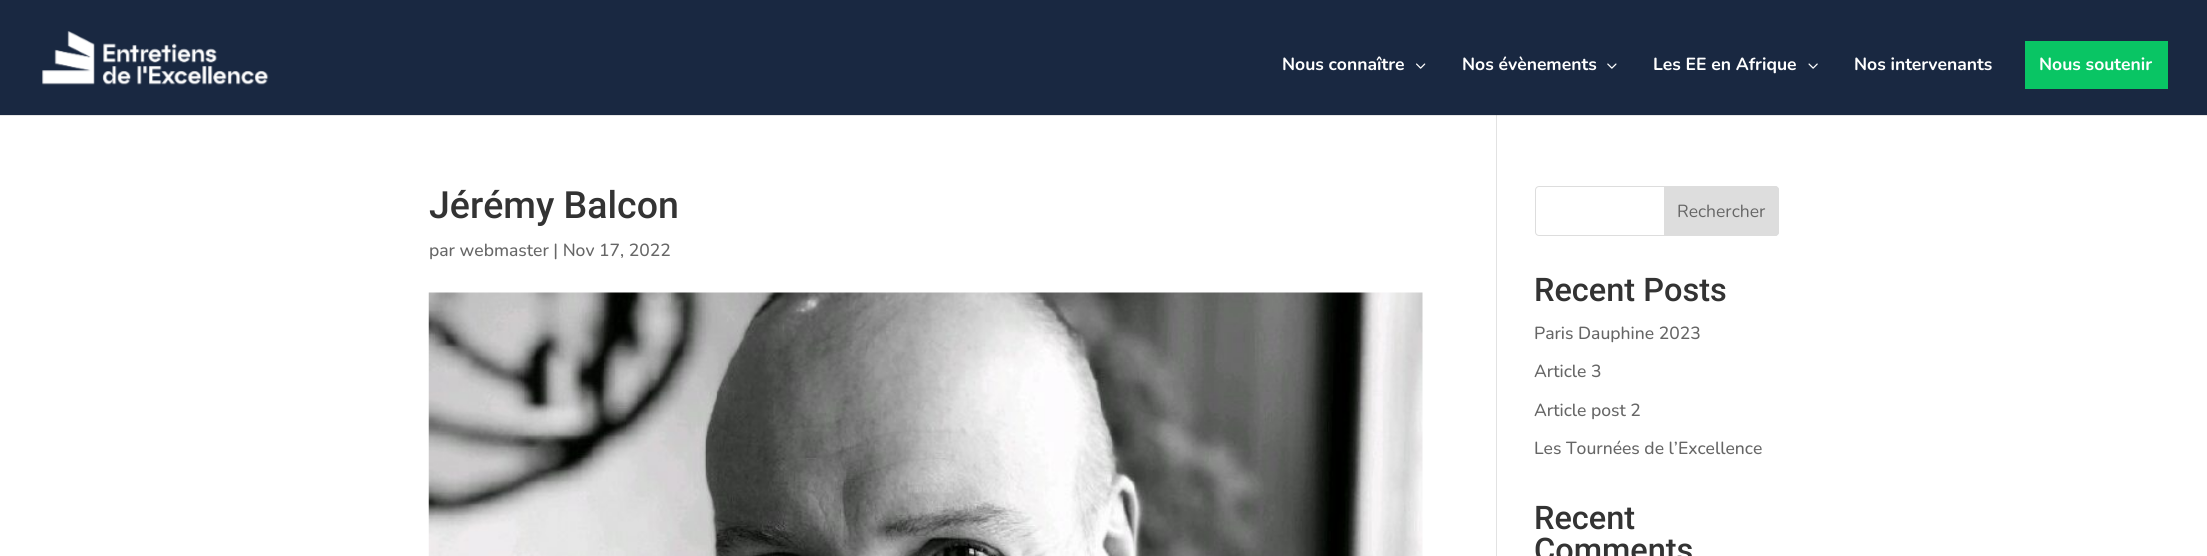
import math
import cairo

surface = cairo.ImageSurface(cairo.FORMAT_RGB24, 2207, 556)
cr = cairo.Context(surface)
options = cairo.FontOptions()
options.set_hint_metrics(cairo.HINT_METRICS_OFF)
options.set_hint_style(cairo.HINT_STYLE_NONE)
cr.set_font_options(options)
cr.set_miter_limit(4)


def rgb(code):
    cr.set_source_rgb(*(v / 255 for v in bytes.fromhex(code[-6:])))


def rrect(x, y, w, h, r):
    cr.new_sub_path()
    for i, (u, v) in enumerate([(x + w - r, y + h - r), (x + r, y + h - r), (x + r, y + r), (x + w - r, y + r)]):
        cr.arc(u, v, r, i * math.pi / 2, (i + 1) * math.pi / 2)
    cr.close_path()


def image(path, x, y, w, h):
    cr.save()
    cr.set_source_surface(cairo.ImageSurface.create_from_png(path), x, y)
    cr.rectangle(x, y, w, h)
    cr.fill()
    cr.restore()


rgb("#ffffff")
cr.paint()
rgb("#e2e2e2")
cr.rectangle(1496, 114, 1, 442)
cr.fill()
cr.set_source_rgba(0, 0, 0, 0.1)
cr.new_path()
cr.move_to(0, 115)
cr.line_to(0, 116)
cr.line_to(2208, 116)
cr.line_to(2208, 1)
cr.line_to(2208, 115)
cr.close_path()
cr.fill()
rgb("#192841")
cr.rectangle(0, 0, 2207, 115)
cr.fill()
image("img/1.png", 42, 31, 227, 54)
image("img/2.png", 1416, 63, 10, 6)
image("img/3.png", 1607, 63, 10, 6)
image("img/4.png", 1808, 63, 10, 6)
rgb("#09c564")
cr.rectangle(2025, 41, 143, 48)
cr.fill()
image("img/5.png", 428, 292, 995, 264)
rrect(1535.5, 186.5, 243, 49, 3.5)
rgb("#dddddd")
cr.set_line_width(1)
cr.stroke()
cr.new_path()
cr.move_to(1664.5, 186.5)
cr.line_to(1775, 186.5)
cr.curve_to(1777, 186.5, 1778.5, 188, 1778.5, 190)
cr.line_to(1778.5, 232)
cr.curve_to(1778.5, 234, 1777, 235.5, 1775, 235.5)
cr.line_to(1664.5, 235.5)
cr.close_path()
cr.fill_preserve()
cr.stroke()
cr.select_font_face("Nunito", cairo.FONT_SLANT_NORMAL, cairo.FONT_WEIGHT_BOLD)
cr.set_font_size(17.5)
rgb("#ffffff")
for x, y, s in [
    (1282, 70, "Nous connaître"),
    (1462, 70, "Nos évènements"),
    (1653, 70, "Les EE en Afrique"),
    (1854, 70, "Nos intervenants"),
    (2039, 70, "Nous soutenir"),
]:
    cr.move_to(x, y)
    cr.show_text(s)
cr.select_font_face("Roboto Medium")
cr.set_font_size(37.5)
rgb("#333333")
cr.move_to(429, 218)
cr.show_text("Jérémy Balcon")
cr.select_font_face("Nunito Medium")
cr.set_font_size(17.5)
rgb("#666666")
cr.move_to(429, 256)
cr.show_text("par webmaster | Nov 17, 2022")
cr.select_font_face("Nunito")
cr.move_to(1677, 217)
cr.show_text("Rechercher")
cr.select_font_face("Roboto Medium")
cr.set_font_size(32.5)
rgb("#333333")
cr.move_to(1534, 301)
cr.show_text("Recent Posts")
cr.select_font_face("Nunito Medium")
cr.set_font_size(17.5)
rgb("#666666")
for x, y, s in [
    (1534, 339, "Paris Dauphine 2023"),
    (1534, 377, "Article 3"),
    (1534, 416, "Article post 2"),
    (1534, 454, "Les Tournées de l’Excellence"),
]:
    cr.move_to(x, y)
    cr.show_text(s)
cr.select_font_face("Roboto Medium")
cr.set_font_size(32.5)
rgb("#333333")
cr.move_to(1534, 529)
cr.show_text("Recent")
cr.move_to(1534, 561)
cr.show_text("Comments")
surface.write_to_png("page.png")
